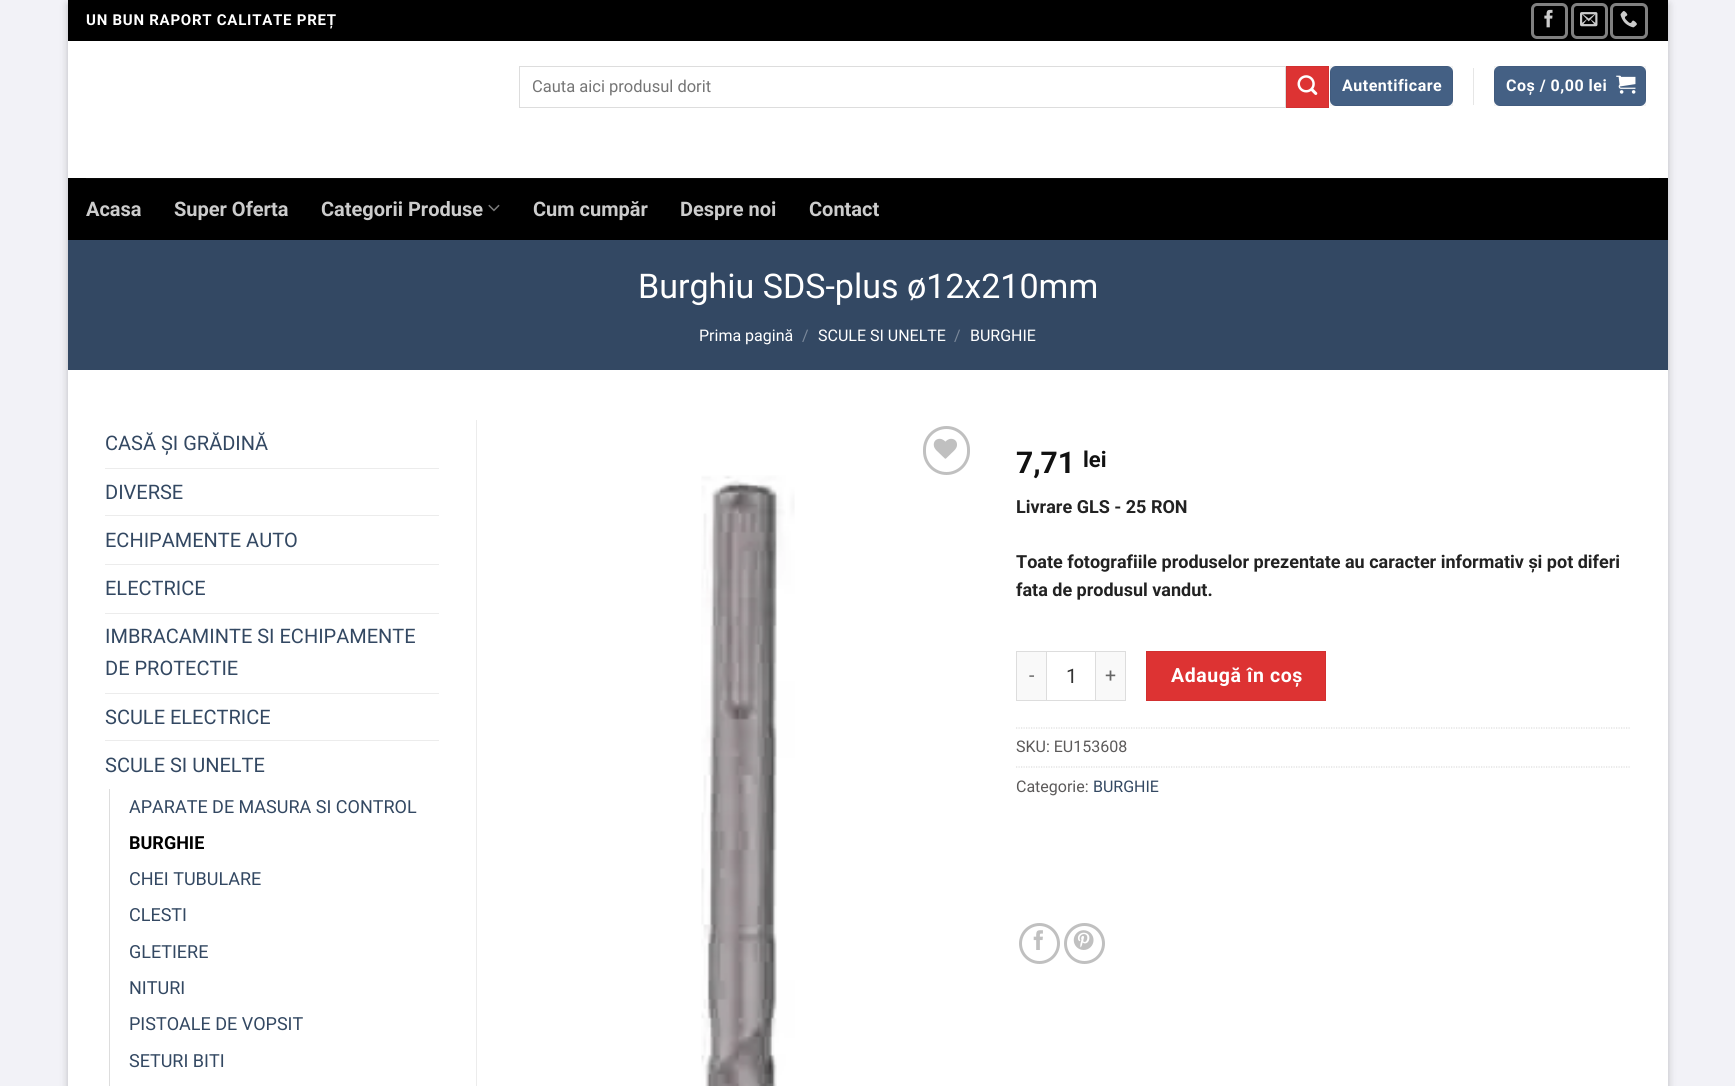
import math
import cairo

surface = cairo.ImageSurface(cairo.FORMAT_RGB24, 1735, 1086)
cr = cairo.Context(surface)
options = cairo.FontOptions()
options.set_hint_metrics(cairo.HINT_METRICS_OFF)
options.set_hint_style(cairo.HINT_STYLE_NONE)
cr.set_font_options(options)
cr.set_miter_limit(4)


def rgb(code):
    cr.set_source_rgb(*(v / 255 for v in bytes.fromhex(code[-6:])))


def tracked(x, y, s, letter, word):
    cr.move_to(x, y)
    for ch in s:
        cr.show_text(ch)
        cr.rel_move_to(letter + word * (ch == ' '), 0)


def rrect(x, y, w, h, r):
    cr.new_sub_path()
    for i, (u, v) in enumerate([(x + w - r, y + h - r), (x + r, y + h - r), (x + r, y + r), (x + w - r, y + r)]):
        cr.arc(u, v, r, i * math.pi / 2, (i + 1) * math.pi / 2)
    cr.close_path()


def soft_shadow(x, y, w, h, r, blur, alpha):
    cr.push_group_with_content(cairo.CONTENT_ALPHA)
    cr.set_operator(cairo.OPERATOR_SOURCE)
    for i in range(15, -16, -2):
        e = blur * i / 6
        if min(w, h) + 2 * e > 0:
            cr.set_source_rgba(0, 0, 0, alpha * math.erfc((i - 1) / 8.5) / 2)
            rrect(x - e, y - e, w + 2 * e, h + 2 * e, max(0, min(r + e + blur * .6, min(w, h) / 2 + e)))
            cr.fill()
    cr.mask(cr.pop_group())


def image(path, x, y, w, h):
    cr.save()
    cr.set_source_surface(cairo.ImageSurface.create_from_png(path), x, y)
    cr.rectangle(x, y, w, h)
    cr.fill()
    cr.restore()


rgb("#f2f2f7")
cr.paint()
rgb("#000000")
soft_shadow(68, 4, 1600, 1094, 0, 4, 0.23)
rgb("#ffffff")
cr.rectangle(68, 41, 1600, 1045)
cr.fill()
rgb("#000000")
cr.rectangle(68, 0, 1600, 41)
cr.fill()
rrect(1532.5, 4.5, 34, 33, 4.5)
rgb("#808080")
cr.set_line_width(3)
cr.stroke()
image("img/1.png", 1544, 9, 9, 19)
rrect(1572.5, 4.5, 34, 33, 4.5)
cr.stroke()
image("img/2.png", 1580, 12, 18, 15)
rrect(1611.5, 4.5, 35, 33, 4.5)
cr.stroke()
image("img/3.png", 1620, 11, 17, 17)
cr.rectangle(519.5, 66.5, 766, 41)
rgb("#dddddd")
cr.set_line_width(1)
cr.stroke()
rgb("#dd3333")
cr.rectangle(1286.5, 66.5, 42, 41)
cr.fill_preserve()
rgb("#d23030")
cr.stroke()
image("img/4.png", 1297, 75, 21, 20)
rgb("#446084")
rrect(1330, 66, 123, 40, 6)
cr.fill()
cr.rectangle(1330.5, 66.5, 122, 39)
cr.set_source_rgba(0, 0, 0, 0.05)
cr.stroke()
rgb("#e6e6e6")
cr.rectangle(1473, 68, 1, 37)
cr.fill()
rgb("#446084")
rrect(1494, 66, 152, 40, 6)
cr.fill()
cr.rectangle(1494.5, 66.5, 151, 39)
cr.set_source_rgba(0, 0, 0, 0.05)
cr.stroke()
image("img/5.png", 1616, 75, 20, 19)
rgb("#000000")
cr.rectangle(68, 178, 1600, 62)
cr.fill()
rgb("#090909")
cr.rectangle(86, 178, 1563, 1)
cr.fill()
image("img/6.png", 488, 204, 12, 8)
for x, y, w, h, color in [
    (68, 240, 1600, 130, "#334863"),
    (476, 420, 1, 666, "#ececec"),
    (105, 468, 334, 1, "#ececec"),
    (105, 515, 334, 1, "#ececec"),
    (105, 564, 334, 1, "#ececec"),
    (105, 613, 334, 1, "#ececec"),
    (105, 693, 334, 1, "#ececec"),
    (105, 740, 334, 1, "#ececec"),
    (109, 789, 1, 297, "#dddddd"),
]:
    rgb(color)
    cr.rectangle(x, y, w, h)
    cr.fill()
rrect(924.5, 427.5, 44, 46, 22)
rgb("#c0c0c0")
cr.set_line_width(3)
cr.stroke()
image("img/7.png", 933, 438, 24, 21)
image("img/8.png", 701, 475, 94, 611)
for x, y, w, h, color in [
    (1017, 652, 29, 48, "#f9f9f9"),
    (1016, 651, 30, 1, "#dddddd"),
    (1016, 700, 30, 1, "#dddddd"),
    (1016, 651, 1, 50, "#dddddd"),
]:
    rgb(color)
    cr.rectangle(x, y, w, h)
    cr.fill()
cr.rectangle(1046.5, 651.5, 49, 49)
cr.set_line_width(1)
cr.stroke()
for x, y, w, h, color in [
    (1096, 652, 29, 48, "#f9f9f9"),
    (1096, 651, 30, 1, "#dddddd"),
    (1125, 651, 1, 50, "#dddddd"),
    (1096, 700, 30, 1, "#dddddd"),
]:
    rgb(color)
    cr.rectangle(x, y, w, h)
    cr.fill()
rgb("#dd3333")
cr.rectangle(1146.5, 651.5, 179, 49)
cr.fill_preserve()
rgb("#d23030")
cr.stroke()
cr.new_path()
cr.move_to(1016, 728)
cr.line_to(1630, 728)
rgb("#dddddd")
cr.set_line_width(1.2)
cr.set_dash([1.25, 1.25])
cr.stroke()
cr.new_path()
cr.move_to(1016, 767)
cr.line_to(1630, 767)
cr.stroke()
cr.arc(1039.5, 943.5, 19, 0, 2 * math.pi)
rgb("#c0c0c0")
cr.set_line_width(3)
cr.set_dash([])
cr.stroke()
image("img/9.png", 1033, 930, 10, 20)
cr.arc(1084.5, 943.5, 19, 0, 2 * math.pi)
cr.stroke()
image("img/10.png", 1073, 930, 21, 20)
cr.select_font_face("Roboto", cairo.FONT_SLANT_NORMAL, cairo.FONT_WEIGHT_BOLD)
cr.set_font_size(15)
rgb("#ffffff")
tracked(86, 25, "UN BUN RAPORT CALITATE PREȚ", 0.75, 0)
cr.select_font_face("Roboto")
cr.set_font_size(16.5)
rgb("#757575")
cr.move_to(532, 92)
cr.show_text("Cauta aici produsul dorit")
cr.select_font_face("Roboto", cairo.FONT_SLANT_NORMAL, cairo.FONT_WEIGHT_BOLD)
cr.set_font_size(16)
rgb("#ffffff")
tracked(1342, 91, "Autentificare", 0.5, 0)
tracked(1506, 91, "Coș / 0,00 lei", 0.5, 0)
cr.set_font_size(20)
rgb("#cccccc")
for x, y, s in [
    (86, 216, "Acasa"),
    (174, 216, "Super Oferta"),
    (321, 216, "Categorii Produse"),
    (533, 216, "Cum cumpăr"),
    (680, 216, "Despre noi"),
    (809, 216, "Contact"),
]:
    cr.move_to(x, y)
    cr.show_text(s)
cr.select_font_face("Roboto")
cr.set_font_size(34)
rgb("#ffffff")
cr.move_to(638, 298)
cr.show_text("Burghiu SDS-plus ø12х210mm")
cr.set_font_size(16)
cr.move_to(699, 341)
cr.show_text("Prima pagină")
rgb("#7a889a")
cr.move_to(802, 341)
cr.show_text("/")
rgb("#ffffff")
cr.move_to(818, 341)
cr.show_text("SCULE SI UNELTE")
rgb("#7a889a")
cr.move_to(954, 341)
cr.show_text("/")
rgb("#ffffff")
cr.move_to(970, 341)
cr.show_text("BURGHIE")
cr.set_font_size(20)
rgb("#334862")
for x, y, s in [
    (105, 450, "CASĂ ȘI GRĂDINĂ"),
    (105, 499, "DIVERSE"),
    (105, 547, "ECHIPAMENTE AUTO"),
    (105, 595, "ELECTRICE"),
    (105, 643, "IMBRACAMINTE SI ECHIPAMENTE"),
    (105, 675, "DE PROTECTIE"),
    (105, 724, "SCULE ELECTRICE"),
    (105, 772, "SCULE SI UNELTE"),
]:
    cr.move_to(x, y)
    cr.show_text(s)
cr.set_font_size(18)
cr.move_to(129, 813)
cr.show_text("APARATE DE MASURA SI CONTROL")
cr.select_font_face("Roboto", cairo.FONT_SLANT_NORMAL, cairo.FONT_WEIGHT_BOLD)
rgb("#000000")
cr.move_to(129, 849)
cr.show_text("BURGHIE")
cr.select_font_face("Roboto")
rgb("#334862")
for x, y, s in [
    (129, 885, "CHEI TUBULARE"),
    (129, 921, "CLESTI"),
    (129, 958, "GLETIERE"),
    (129, 994, "NITURI"),
    (129, 1030, "PISTOALE DE VOPSIT"),
    (129, 1067, "SETURI BITI"),
]:
    cr.move_to(x, y)
    cr.show_text(s)
cr.select_font_face("Roboto", cairo.FONT_SLANT_NORMAL, cairo.FONT_WEIGHT_BOLD)
cr.set_font_size(30)
rgb("#111111")
cr.move_to(1016, 473)
cr.show_text("7,71")
cr.set_font_size(22)
cr.move_to(1083, 467)
cr.show_text("lei")
cr.set_font_size(18)
rgb("#222222")
for x, y, s in [
    (1016, 513, "Livrare GLS - 25 RON"),
    (1016, 568, "Toate fotografiile produselor prezentate au caracter informativ și pot diferi"),
    (1016, 596, "fata de produsul vandut."),
]:
    cr.move_to(x, y)
    cr.show_text(s)
cr.select_font_face("Roboto")
cr.set_font_size(19.5)
rgb("#666666")
tracked(1029, 682, "-", 0.6, 0)
cr.set_font_size(20)
rgb("#333333")
cr.move_to(1066, 683)
cr.show_text("1")
cr.set_font_size(19.5)
rgb("#666666")
tracked(1105, 682, "+", 0.6, 0)
cr.select_font_face("Roboto", cairo.FONT_SLANT_NORMAL, cairo.FONT_WEIGHT_BOLD)
rgb("#ffffff")
tracked(1171, 682, "Adaugă în coș", 0.6, 0)
cr.select_font_face("Roboto")
cr.set_font_size(16)
rgb("#5c5a5a")
cr.move_to(1016, 752)
cr.show_text("SKU: EU153608")
cr.move_to(1016, 792)
cr.show_text("Categorie:")
rgb("#334862")
cr.move_to(1093, 792)
cr.show_text("BURGHIE")
surface.write_to_png("page.png")
